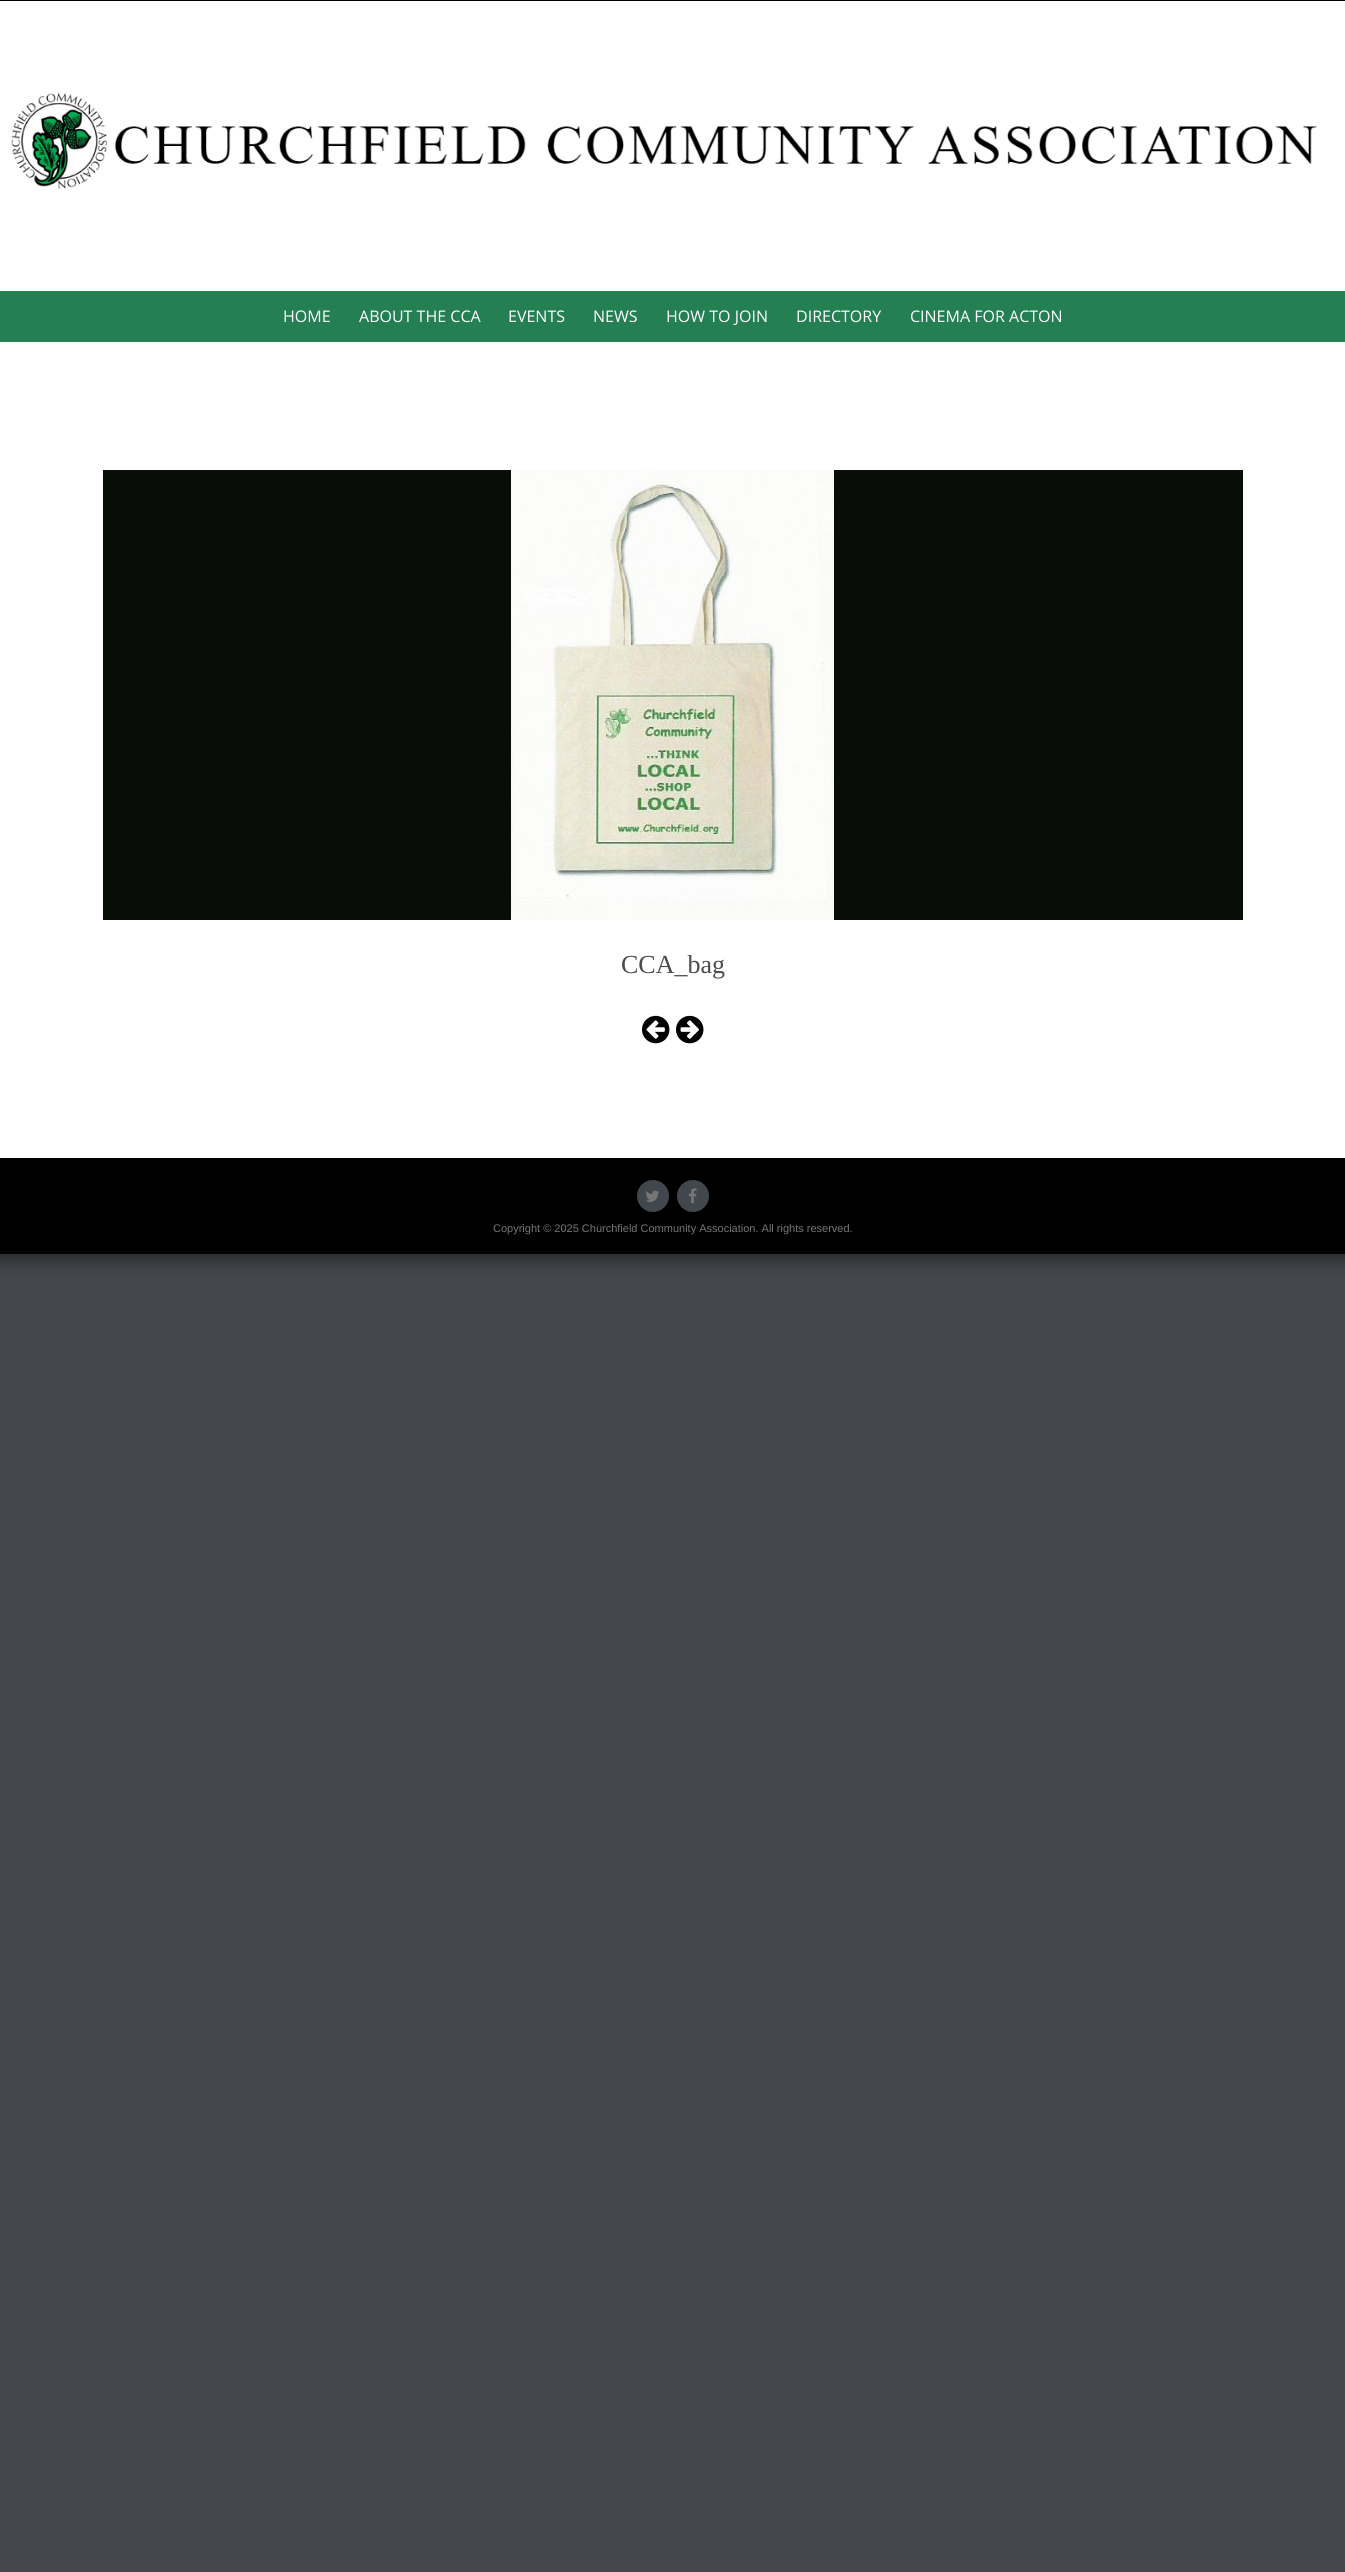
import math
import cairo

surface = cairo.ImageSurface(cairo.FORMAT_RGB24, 1345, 2572)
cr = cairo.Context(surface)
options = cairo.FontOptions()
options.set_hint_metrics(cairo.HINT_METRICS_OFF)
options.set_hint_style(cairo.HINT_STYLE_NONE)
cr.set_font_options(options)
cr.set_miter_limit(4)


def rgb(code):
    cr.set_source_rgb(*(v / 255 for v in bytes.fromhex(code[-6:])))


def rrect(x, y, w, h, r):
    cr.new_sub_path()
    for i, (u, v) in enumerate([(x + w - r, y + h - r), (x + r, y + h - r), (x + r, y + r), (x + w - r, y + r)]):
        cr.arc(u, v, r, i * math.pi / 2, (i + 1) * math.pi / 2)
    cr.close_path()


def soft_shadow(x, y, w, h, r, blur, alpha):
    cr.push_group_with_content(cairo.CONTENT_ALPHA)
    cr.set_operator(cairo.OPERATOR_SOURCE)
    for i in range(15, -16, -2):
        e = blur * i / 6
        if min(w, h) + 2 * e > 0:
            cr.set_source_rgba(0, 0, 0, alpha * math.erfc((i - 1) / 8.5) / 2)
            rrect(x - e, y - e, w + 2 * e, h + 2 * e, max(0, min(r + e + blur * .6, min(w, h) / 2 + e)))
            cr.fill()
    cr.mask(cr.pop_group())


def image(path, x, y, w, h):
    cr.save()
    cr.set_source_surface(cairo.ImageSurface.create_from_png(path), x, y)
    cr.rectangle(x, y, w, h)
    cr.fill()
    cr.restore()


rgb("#44474c")
cr.paint()
rgb("#000000")
soft_shadow(-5, -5, 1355, 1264, 0, 10, 0.5)
rgb("#000000")
cr.rectangle(0, 0, 1345, 1)
cr.fill()
rgb("#ffffff")
cr.rectangle(0, 1, 1345, 290)
cr.fill()
image("img/1.png", 11, 92, 1306, 97)
for x, y, w, h, color in [
    (0, 291, 1345, 51, "#247f53"),
    (0, 342, 1345, 816, "#ffffff"),
    (103, 470, 1140, 450, "#080d07"),
]:
    rgb(color)
    cr.rectangle(x, y, w, h)
    cr.fill()
image("img/2.png", 511, 470, 323, 450)
image("img/3.png", 642, 1015, 28, 29)
image("img/4.png", 676, 1015, 28, 29)
rgb("#000000")
cr.rectangle(0, 1158, 1345, 96)
cr.fill()
rgb("#42474d")
cr.arc(653, 1196, 16, 0, 2 * math.pi)
cr.fill()
image("img/5.png", 645, 1190, 15, 12)
cr.arc(693, 1196, 16, 0, 2 * math.pi)
cr.fill()
image("img/6.png", 688, 1188, 9, 16)
cr.select_font_face("Open Sans")
cr.set_font_size(16)
rgb("#ffffff")
for x, y, s in [
    (283, 322, "HOME"),
    (359, 322, "ABOUT THE CCA"),
    (508, 322, "EVENTS"),
    (593, 322, "NEWS"),
    (666, 322, "HOW TO JOIN"),
    (796, 322, "DIRECTORY"),
    (910, 322, "CINEMA FOR ACTON"),
]:
    cr.move_to(x, y)
    cr.show_text(s)
cr.select_font_face("Liberation Serif")
cr.set_font_size(26)
rgb("#4c4c4c")
cr.move_to(621, 973)
cr.show_text("CCA_bag")
cr.select_font_face("Liberation Sans")
cr.set_font_size(11)
rgb("#767676")
cr.move_to(493, 1232)
cr.show_text("Copyright © 2025 Churchfield Community Association. All rights reserved.")
surface.write_to_png("page.png")
